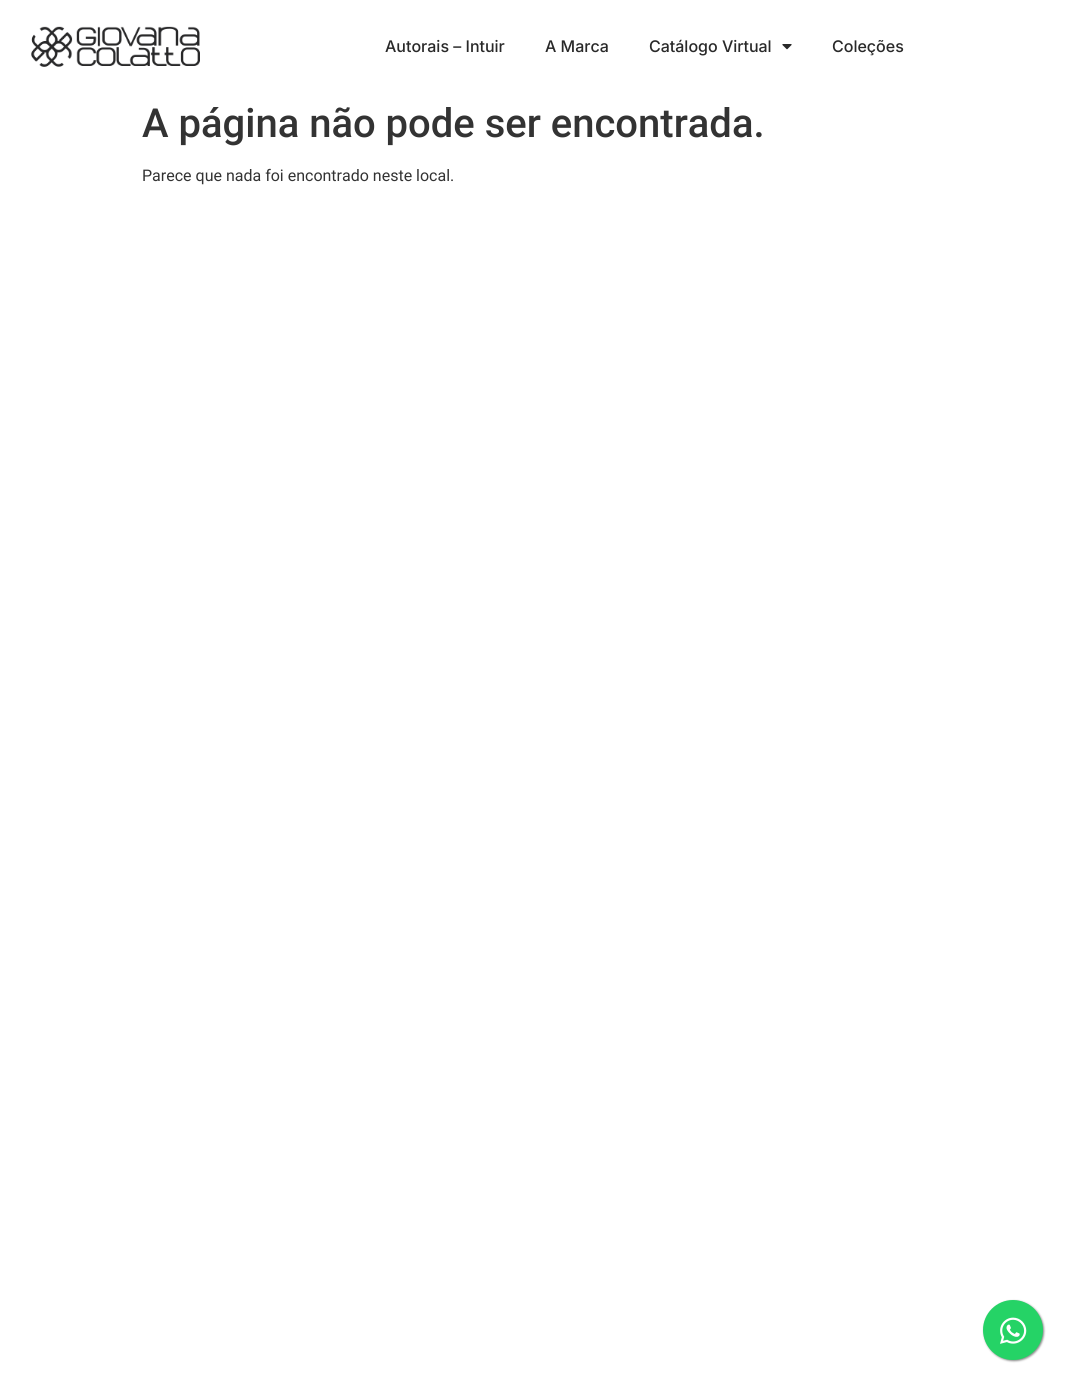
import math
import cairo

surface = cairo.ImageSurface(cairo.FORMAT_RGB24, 1083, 1400)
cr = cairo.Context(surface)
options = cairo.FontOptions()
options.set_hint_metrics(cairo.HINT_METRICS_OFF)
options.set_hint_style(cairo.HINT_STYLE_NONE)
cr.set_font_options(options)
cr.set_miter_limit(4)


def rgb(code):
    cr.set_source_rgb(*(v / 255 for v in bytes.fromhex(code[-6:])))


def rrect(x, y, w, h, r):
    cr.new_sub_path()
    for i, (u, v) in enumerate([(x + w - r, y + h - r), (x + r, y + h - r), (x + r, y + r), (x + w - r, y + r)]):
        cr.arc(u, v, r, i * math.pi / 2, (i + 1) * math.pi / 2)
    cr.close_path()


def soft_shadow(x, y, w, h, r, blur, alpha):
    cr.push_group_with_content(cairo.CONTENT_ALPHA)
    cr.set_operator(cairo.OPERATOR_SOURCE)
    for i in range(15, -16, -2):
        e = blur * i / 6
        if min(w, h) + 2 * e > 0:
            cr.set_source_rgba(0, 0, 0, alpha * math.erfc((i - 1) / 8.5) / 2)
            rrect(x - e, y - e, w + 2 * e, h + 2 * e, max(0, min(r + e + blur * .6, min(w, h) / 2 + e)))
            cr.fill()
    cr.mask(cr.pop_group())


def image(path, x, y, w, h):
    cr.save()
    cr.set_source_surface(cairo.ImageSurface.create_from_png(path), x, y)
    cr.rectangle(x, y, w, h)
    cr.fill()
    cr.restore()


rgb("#ffffff")
cr.paint()
image("img/1.png", 31, 26, 169, 41)
image("img/2.png", 782, 44, 10, 6)
rgb("#888888")
soft_shadow(984, 1301, 60, 60, 30, 1, 1)
rgb("#25d366")
cr.arc(1013, 1330, 30, 0, 2 * math.pi)
cr.fill()
image("img/3.png", 1000, 1317, 27, 27)
cr.select_font_face("Inter Medium")
cr.set_font_size(16)
rgb("#292929")
for x, y, s in [
    (385, 52, "Autorais – Intuir"),
    (545, 52, "A Marca"),
    (649, 52, "Catálogo Virtual"),
    (832, 52, "Coleções"),
]:
    cr.move_to(x, y)
    cr.show_text(s)
cr.select_font_face("Roboto Medium")
cr.set_font_size(40)
rgb("#333333")
cr.move_to(142, 137)
cr.show_text("A página não pode ser encontrada.")
cr.select_font_face("Roboto")
cr.set_font_size(16)
cr.move_to(142, 181)
cr.show_text("Parece que nada foi encontrado neste local.")
surface.write_to_png("page.png")
